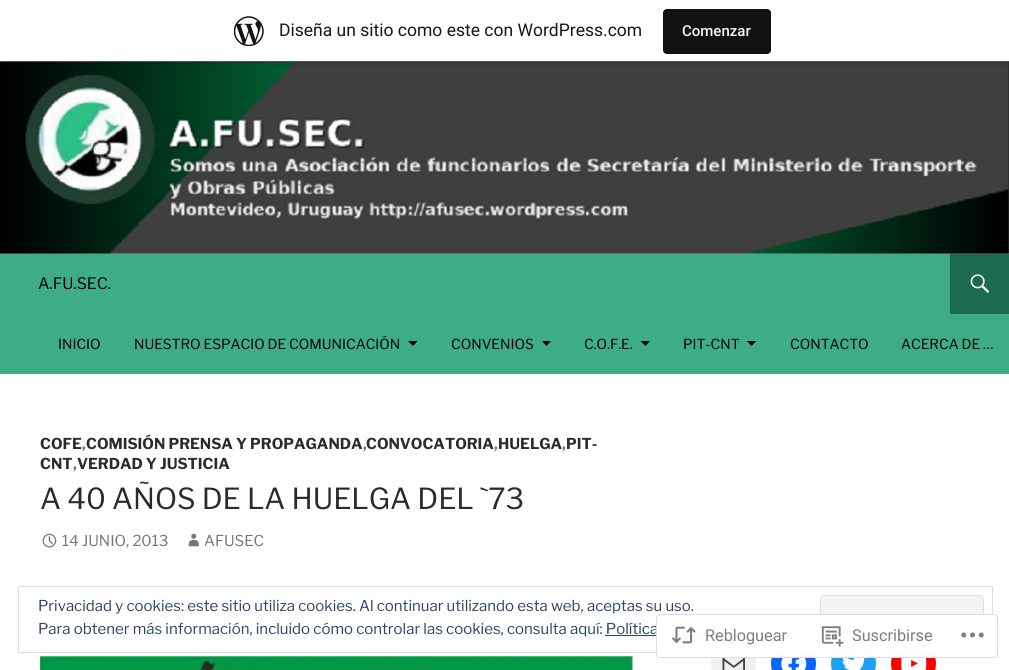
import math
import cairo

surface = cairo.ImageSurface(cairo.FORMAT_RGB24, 1009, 670)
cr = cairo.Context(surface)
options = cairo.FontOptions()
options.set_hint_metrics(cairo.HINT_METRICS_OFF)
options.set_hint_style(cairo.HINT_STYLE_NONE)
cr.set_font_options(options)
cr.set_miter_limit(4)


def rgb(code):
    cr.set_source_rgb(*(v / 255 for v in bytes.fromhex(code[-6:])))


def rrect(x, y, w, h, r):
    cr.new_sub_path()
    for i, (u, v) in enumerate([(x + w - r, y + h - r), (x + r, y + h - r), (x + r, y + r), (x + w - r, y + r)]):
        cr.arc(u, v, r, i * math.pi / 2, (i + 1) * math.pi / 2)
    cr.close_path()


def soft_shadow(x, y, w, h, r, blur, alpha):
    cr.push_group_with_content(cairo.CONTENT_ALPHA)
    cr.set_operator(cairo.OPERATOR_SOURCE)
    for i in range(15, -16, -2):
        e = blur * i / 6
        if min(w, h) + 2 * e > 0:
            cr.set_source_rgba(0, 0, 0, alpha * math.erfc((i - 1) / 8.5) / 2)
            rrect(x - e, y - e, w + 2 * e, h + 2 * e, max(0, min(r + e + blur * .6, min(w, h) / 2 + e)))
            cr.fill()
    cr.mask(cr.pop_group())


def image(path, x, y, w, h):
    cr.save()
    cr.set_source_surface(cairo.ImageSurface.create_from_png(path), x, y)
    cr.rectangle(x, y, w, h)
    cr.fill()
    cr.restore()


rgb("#ffffff")
cr.paint()
image("img/2.png", 0, 61, 1009, 193)
rgb("#000000")
soft_shadow(0, 1, 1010, 62, 0, 1, 0.05)
cr.set_source_rgba(0, 0, 0, 0.08)
cr.new_path()
cr.move_to(1, 61)
cr.line_to(1, 65)
cr.line_to(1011, 65)
cr.line_to(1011, 4)
cr.line_to(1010, 4)
cr.line_to(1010, 61)
cr.close_path()
cr.fill()
rgb("#ffffff")
cr.rectangle(0, 0, 1009, 61)
cr.fill()
image("img/1.png", 234, 16, 30, 30)
rgb("#111111")
rrect(663, 9, 108, 45, 4)
cr.fill()
rgb("#3eac89")
cr.rectangle(0, 254, 1009, 120)
cr.fill()
rgb("#1c6a52")
cr.rectangle(950, 254, 59, 60)
cr.fill()
image("img/3.png", 970, 274, 20, 19)
rgb("#000000")
cr.new_path()
cr.move_to(408, 341)
cr.line_to(417.5, 341)
cr.line_to(413, 346)
cr.close_path()
cr.fill()
cr.new_path()
cr.move_to(542, 341)
cr.line_to(551, 341)
cr.line_to(546.5, 346)
cr.close_path()
cr.fill()
cr.new_path()
cr.move_to(640.5, 341)
cr.line_to(650, 341)
cr.line_to(645.5, 346)
cr.close_path()
cr.fill()
cr.new_path()
cr.move_to(747, 341)
cr.line_to(756, 341)
cr.line_to(751.5, 346)
cr.close_path()
cr.fill()
image("img/4.png", 42, 533, 15, 15)
image("img/5.png", 188, 533, 11, 14)
image("img/6.png", 40, 656, 593, 14)
rgb("#f0f0f0")
cr.arc(733.5, 663.5, 22.5, 0, 2 * math.pi)
cr.fill()
image("img/7.png", 722, 655, 23, 15)
rgb("#0866ff")
cr.arc(793.5, 663.5, 22.5, 0, 2 * math.pi)
cr.fill()
image("img/8.png", 781, 653, 26, 17)
rgb("#1da1f2")
cr.arc(853.5, 663.5, 22.5, 0, 2 * math.pi)
cr.fill()
image("img/9.png", 842, 653, 25, 17)
rgb("#ff0000")
cr.arc(913.5, 663.5, 22.5, 0, 2 * math.pi)
cr.fill()
image("img/10.png", 901, 654, 26, 16)
rgb("#ffffff")
cr.rectangle(714, 641, 219, 11)
cr.fill()
cr.rectangle(18.5, 586.5, 974, 66)
rgb("#dedede")
cr.set_line_width(1)
cr.stroke()
rgb("#f3f3f3")
rrect(820.5, 595.5, 163, 48, 3.5)
cr.fill_preserve()
rgb("#dedede")
cr.stroke()
rgb("#2e4467")
cr.rectangle(605, 635, 131, 1)
cr.fill()
cr.select_font_face("Roboto")
cr.set_font_size(17.5)
rgb("#171717")
cr.move_to(279, 36)
cr.show_text("Diseña un sitio como este con WordPress.com")
cr.select_font_face("Roboto Medium")
cr.set_font_size(15)
rgb("#f6f7f7")
cr.move_to(682, 36)
cr.show_text("Comenzar")
cr.select_font_face("Libre Franklin")
cr.set_font_size(15.75)
rgb("#000000")
cr.move_to(38, 289)
cr.show_text("A.FU.SEC.")
cr.set_font_size(13.75)
for x, y, s in [
    (58, 349, "INICIO"),
    (134, 349, "NUESTRO ESPACIO DE COMUNICACIÓN"),
    (451, 349, "CONVENIOS"),
    (584, 349, "C.O.F.E."),
    (683, 349, "PIT-CNT"),
    (790, 349, "CONTACTO"),
    (901, 349, "ACERCA DE …"),
]:
    cr.move_to(x, y)
    cr.show_text(s)
cr.select_font_face("Libre Franklin", cairo.FONT_SLANT_NORMAL, cairo.FONT_WEIGHT_BOLD)
cr.set_font_size(15)
rgb("#2b2b2b")
cr.move_to(40, 449)
cr.show_text("COFE")
rgb("#767676")
cr.move_to(82, 449)
cr.show_text(",")
rgb("#2b2b2b")
cr.move_to(86, 449)
cr.show_text("COMISIÓN PRENSA Y PROPAGANDA")
rgb("#767676")
cr.move_to(363, 449)
cr.show_text(",")
rgb("#2b2b2b")
cr.move_to(366, 449)
cr.show_text("CONVOCATORIA")
rgb("#767676")
cr.move_to(494, 449)
cr.show_text(",")
rgb("#2b2b2b")
cr.move_to(498, 449)
cr.show_text("HUELGA")
rgb("#767676")
cr.move_to(562, 449)
cr.show_text(",")
rgb("#2b2b2b")
cr.move_to(566, 449)
cr.show_text("PIT-")
cr.move_to(40, 469)
cr.show_text("CNT")
rgb("#767676")
cr.move_to(73, 469)
cr.show_text(",")
rgb("#2b2b2b")
cr.move_to(77, 469)
cr.show_text("VERDAD Y JUSTICIA")
cr.select_font_face("Libre Franklin")
cr.set_font_size(28.9)
cr.move_to(40, 509)
cr.show_text("A 40 AÑOS DE LA HUELGA DEL `73")
cr.set_font_size(15)
rgb("#767676")
cr.move_to(62, 546)
cr.show_text("14 JUNIO, 2013")
cr.move_to(204, 546)
cr.show_text("AFUSEC")
rgb("#2e4467")
cr.move_to(38, 611)
cr.show_text("Privacidad y cookies: este sitio utiliza cookies. Al continuar utilizando esta web, aceptas su uso.")
cr.move_to(38, 634)
cr.show_text("Para obtener más información, incluido cómo controlar las cookies, consulta aquí: Política")
cr.set_source_rgba(1, 1, 1, 0.98)
rrect(656, 614, 342, 44, 4)
cr.fill()
rrect(656.5, 614.5, 341, 43, 3.5)
cr.set_source_rgba(0.863, 0.863, 0.871, 0.98)
cr.stroke()
image("img/11.png", 671, 626, 25, 18)
cr.select_font_face("Roboto")
cr.set_font_size(16.25)
rgb("#7b7f84")
cr.move_to(705, 641)
cr.show_text("Rebloguear")
image("img/12.png", 821, 626, 23, 21)
cr.move_to(852, 641)
cr.show_text("Suscribirse")
image("img/13.png", 961, 632, 23, 6)
surface.write_to_png("page.png")
